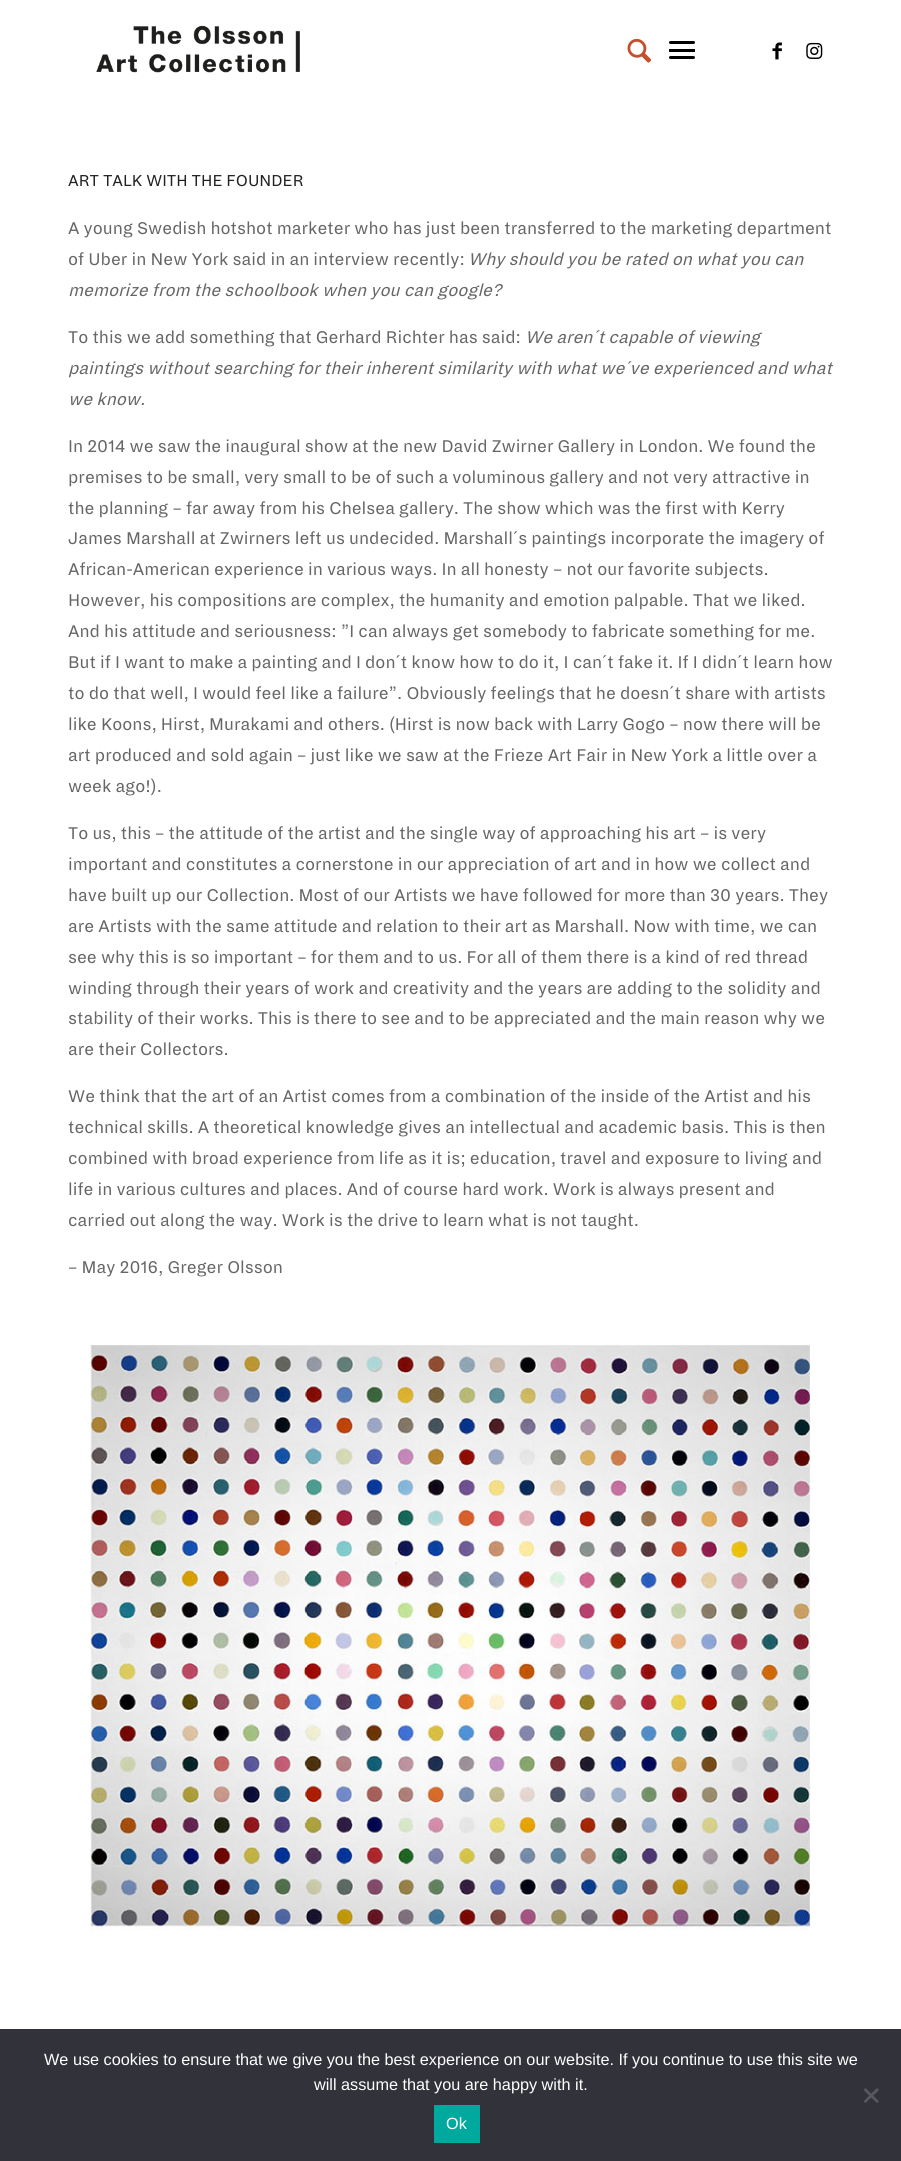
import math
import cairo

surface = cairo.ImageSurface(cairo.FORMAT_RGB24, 901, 2161)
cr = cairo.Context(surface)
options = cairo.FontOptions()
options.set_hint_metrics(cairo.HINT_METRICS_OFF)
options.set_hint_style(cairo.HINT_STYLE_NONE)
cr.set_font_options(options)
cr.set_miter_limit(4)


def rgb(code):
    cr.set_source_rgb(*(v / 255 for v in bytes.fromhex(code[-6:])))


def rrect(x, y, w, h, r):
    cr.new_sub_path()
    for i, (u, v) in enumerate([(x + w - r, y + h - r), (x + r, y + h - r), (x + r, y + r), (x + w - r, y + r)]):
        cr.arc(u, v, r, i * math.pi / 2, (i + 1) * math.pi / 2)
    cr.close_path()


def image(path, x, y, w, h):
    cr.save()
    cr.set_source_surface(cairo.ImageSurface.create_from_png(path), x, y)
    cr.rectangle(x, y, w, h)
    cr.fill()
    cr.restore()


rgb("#ffffff")
cr.paint()
image("img/1.png", 96, 25, 204, 48)
image("img/2.png", 627, 38, 25, 25)
rgb("#000000")
cr.rectangle(669, 49, 26, 3)
cr.fill()
rrect(669, 41, 26, 3, 1.5)
cr.fill()
rrect(669, 56, 26, 3, 1.5)
cr.fill()
image("img/3.png", 772, 42, 10, 18)
image("img/4.png", 806, 42, 17, 17)
image("img/5.png", 90, 1344, 721, 587)
rgb("#32323a")
cr.rectangle(0, 2029, 901, 132)
cr.fill()
rgb("#59595d")
cr.new_path()
cr.move_to(877, 2088)
cr.line_to(879, 2090)
cr.line_to(865.5, 2103)
cr.line_to(863.5, 2101.5)
cr.close_path()
cr.fill()
cr.new_path()
cr.move_to(863.5, 2090)
cr.line_to(865.5, 2088)
cr.line_to(879, 2101.5)
cr.line_to(877, 2103)
cr.close_path()
cr.fill()
rgb("#00a99d")
cr.rectangle(434, 2105, 46, 38)
cr.fill()
cr.select_font_face("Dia")
cr.set_font_size(17.5)
rgb("#222222")
cr.move_to(68, 186)
cr.show_text("ART TALK WITH THE FOUNDER")
cr.set_font_size(18.75)
rgb("#666666")
cr.move_to(68, 234)
cr.show_text("A young Swedish hotshot marketer who has just been transferred to the marketing department")
cr.move_to(68, 265)
cr.show_text("of Uber in New York said in an interview recently:")
cr.select_font_face("Dia", cairo.FONT_SLANT_ITALIC)
cr.move_to(468, 265)
cr.show_text("Why should you be rated on what you can")
cr.move_to(68, 296)
cr.show_text("memorize from the schoolbook when you can google?")
cr.select_font_face("Dia")
cr.move_to(68, 343)
cr.show_text("To this we add something that Gerhard Richter has said:")
cr.select_font_face("Dia", cairo.FONT_SLANT_ITALIC)
for x, y, s in [
    (525, 343, "We aren´t capable of viewing"),
    (68, 374, "paintings without searching for their inherent similarity with what we´ve experienced and what"),
    (68, 405, "we know."),
]:
    cr.move_to(x, y)
    cr.show_text(s)
cr.select_font_face("Dia")
for x, y, s in [
    (68, 452, "In 2014 we saw the inaugural show at the new David Zwirner Gallery in London. We found the"),
    (68, 483, "premises to be small, very small to be of such a voluminous gallery and not very attractive in"),
    (68, 514, "the planning – far away from his Chelsea gallery. The show which was the first with Kerry"),
    (68, 544, "James Marshall at Zwirners left us undecided. Marshall´s paintings incorporate the imagery of"),
    (68, 575, "African-American experience in various ways. In all honesty – not our favorite subjects."),
    (68, 606, "However, his compositions are complex, the humanity and emotion palpable. That we liked."),
    (68, 637, "And his attitude and seriousness: ”I can always get somebody to fabricate something for me."),
    (68, 668, "But if I want to make a painting and I don´t know how to do it, I can´t fake it. If I didn´t learn how"),
    (68, 699, "to do that well, I would feel like a failure”. Obviously feelings that he doesn´t share with artists"),
    (68, 730, "like Koons, Hirst, Murakami and others. (Hirst is now back with Larry Gogo – now there will be"),
    (68, 761, "art produced and sold again – just like we saw at the Frieze Art Fair in New York a little over a"),
    (68, 792, "week ago!)."),
    (68, 839, "To us, this – the attitude of the artist and the single way of approaching his art – is very"),
    (68, 870, "important and constitutes a cornerstone in our appreciation of art and in how we collect and"),
    (68, 901, "have built up our Collection. Most of our Artists we have followed for more than 30 years. They"),
    (68, 932, "are Artists with the same attitude and relation to their art as Marshall. Now with time, we can"),
    (68, 963, "see why this is so important – for them and to us. For all of them there is a kind of red thread"),
    (68, 994, "winding through their years of work and creativity and the years are adding to the solidity and"),
    (68, 1024, "stability of their works. This is there to see and to be appreciated and the main reason why we"),
    (68, 1055, "are their Collectors."),
    (68, 1102, "We think that the art of an Artist comes from a combination of the inside of the Artist and his"),
    (68, 1133, "technical skills. A theoretical knowledge gives an intellectual and academic basis. This is then"),
    (68, 1164, "combined with broad experience from life as it is; education, travel and exposure to living and"),
    (68, 1195, "life in various cultures and places. And of course hard work. Work is always present and"),
    (68, 1226, "carried out along the way. Work is the drive to learn what is not taught."),
    (68, 1273, "– May 2016, Greger Olsson"),
]:
    cr.move_to(x, y)
    cr.show_text(s)
cr.select_font_face("Liberation Sans")
cr.set_font_size(16.25)
rgb("#ffffff")
for x, y, s in [
    (44, 2065, "We use cookies to ensure that we give you the best experience on our website. If you continue to use this site we"),
    (314, 2090, "will assume that you are happy with it."),
    (446, 2129, "Ok"),
]:
    cr.move_to(x, y)
    cr.show_text(s)
surface.write_to_png("page.png")
